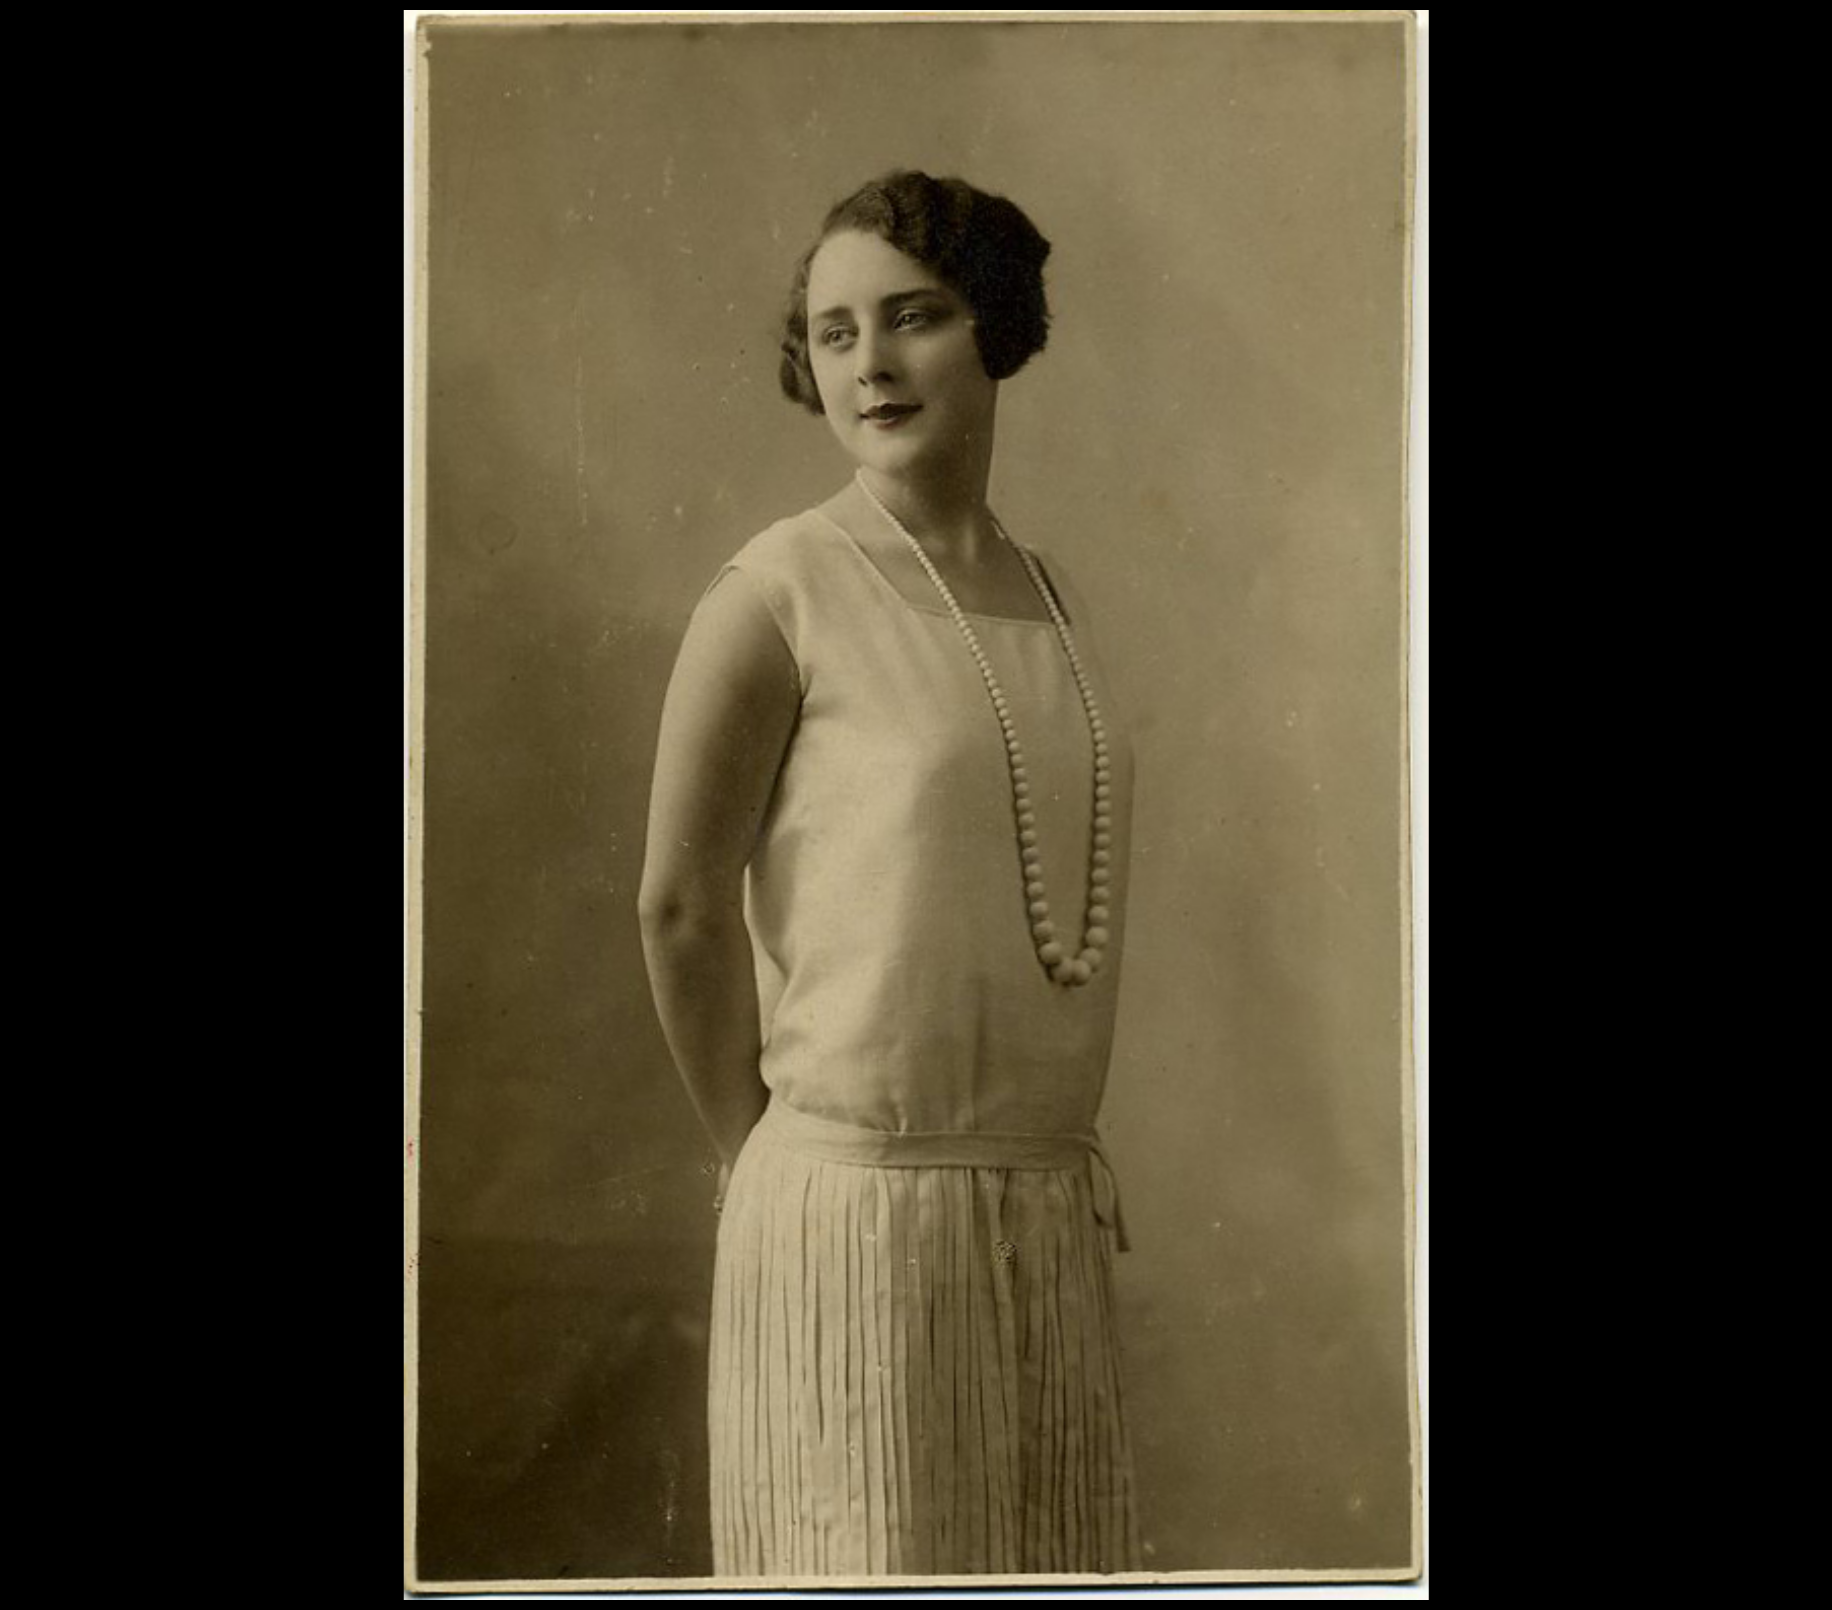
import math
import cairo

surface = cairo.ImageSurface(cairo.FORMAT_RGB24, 1832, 1610)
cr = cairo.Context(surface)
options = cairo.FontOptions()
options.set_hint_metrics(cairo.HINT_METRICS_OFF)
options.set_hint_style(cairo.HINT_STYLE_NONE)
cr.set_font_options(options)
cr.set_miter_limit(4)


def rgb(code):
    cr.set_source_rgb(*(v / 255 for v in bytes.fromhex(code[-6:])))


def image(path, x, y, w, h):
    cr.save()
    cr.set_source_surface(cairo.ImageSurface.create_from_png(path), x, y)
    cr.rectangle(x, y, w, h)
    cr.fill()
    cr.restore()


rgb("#000000")
cr.paint()
image("img/1.png", 403, 10, 1026, 1590)
surface.write_to_png("page.png")
